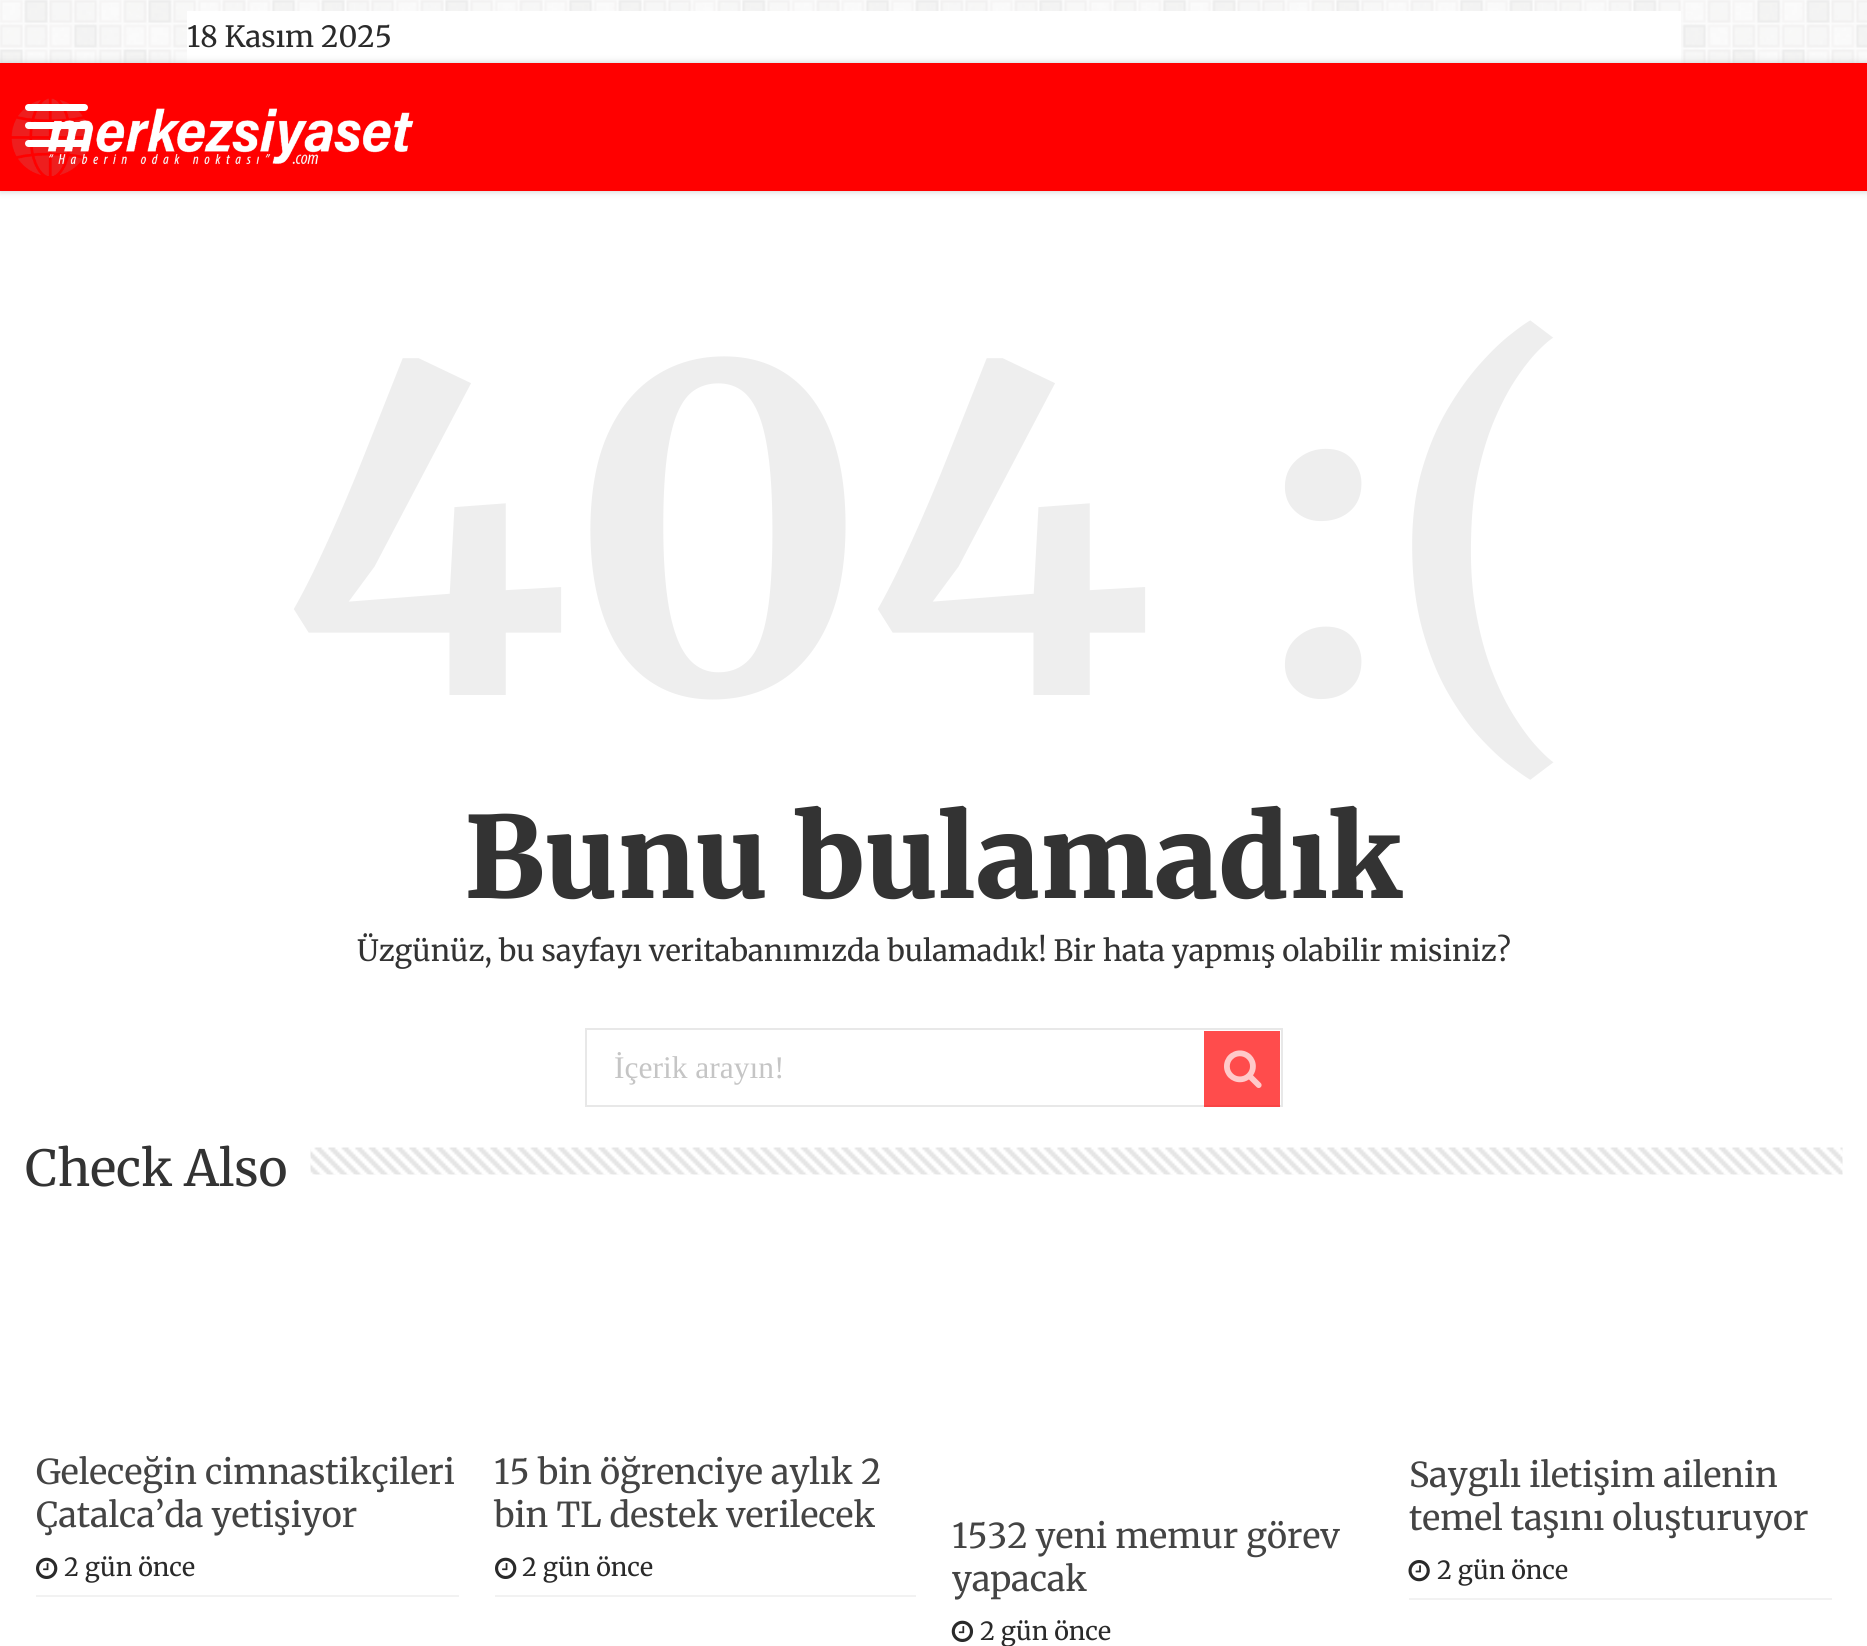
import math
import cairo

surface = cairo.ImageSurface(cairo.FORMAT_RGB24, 1867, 1646)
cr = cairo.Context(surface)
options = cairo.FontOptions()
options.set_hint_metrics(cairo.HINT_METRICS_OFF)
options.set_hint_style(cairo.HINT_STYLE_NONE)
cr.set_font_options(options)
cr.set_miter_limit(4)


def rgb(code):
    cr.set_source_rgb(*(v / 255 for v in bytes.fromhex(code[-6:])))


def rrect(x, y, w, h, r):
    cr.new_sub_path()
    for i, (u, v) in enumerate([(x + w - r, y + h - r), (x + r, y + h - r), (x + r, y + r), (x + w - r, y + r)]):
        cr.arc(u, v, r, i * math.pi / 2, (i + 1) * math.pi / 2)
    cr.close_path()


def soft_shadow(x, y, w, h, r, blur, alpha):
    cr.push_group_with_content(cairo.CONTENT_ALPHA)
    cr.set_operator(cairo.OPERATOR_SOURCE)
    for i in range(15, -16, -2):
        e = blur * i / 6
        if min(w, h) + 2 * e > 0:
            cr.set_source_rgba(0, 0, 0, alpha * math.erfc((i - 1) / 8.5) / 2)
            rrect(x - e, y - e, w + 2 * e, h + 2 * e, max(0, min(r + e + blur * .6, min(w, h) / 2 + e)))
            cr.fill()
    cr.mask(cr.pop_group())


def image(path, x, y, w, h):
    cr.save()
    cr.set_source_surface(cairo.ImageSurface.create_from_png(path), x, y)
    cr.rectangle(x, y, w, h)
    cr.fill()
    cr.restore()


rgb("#ffffff")
cr.paint()
image("img/1.png", 0, 0, 1867, 63)
rgb("#ffffff")
cr.rectangle(187, 11, 1494, 52)
cr.fill()
rgb("#cacaca")
soft_shadow(0, 63, 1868, 128, 0, 3.5, 1)
rgb("#ff0000")
cr.rectangle(0, 63, 1867, 128)
cr.fill()
image("img/2.png", 11, 98, 403, 78)
rgb("#ffffff")
rrect(25, 104, 63, 7, 3.5)
cr.fill()
rrect(25, 122, 63, 7, 3.5)
cr.fill()
rrect(25, 140, 63, 7, 3.5)
cr.fill()
cr.rectangle(586, 1029, 696, 77)
rgb("#e8e8e8")
cr.stroke()
cr.set_source_rgba(1, 0, 0, 0.7)
cr.rectangle(1204, 1031, 76, 76)
cr.fill()
image("img/3.png", 1224, 1050, 38, 38)
image("img/4.png", 310, 1147, 1533, 28)
rgb("#f2f2f2")
cr.rectangle(36, 1595, 423, 2)
cr.fill()
image("img/5.png", 36, 1557, 22, 22)
cr.rectangle(495, 1595, 421, 2)
cr.fill()
image("img/5.png", 495, 1557, 22, 22)
image("img/6.png", 951, 1620, 23, 22)
cr.rectangle(1409, 1598, 423, 2)
cr.fill()
image("img/7.png", 1408, 1560, 22, 22)
cr.select_font_face("Merriweather")
cr.set_font_size(29.25)
rgb("#2a2a2a")
cr.move_to(187, 47)
cr.show_text("18 Kasım 2025")
cr.select_font_face("Merriweather", cairo.FONT_SLANT_NORMAL, cairo.FONT_WEIGHT_BOLD)
cr.set_font_size(450)
rgb("#eeeeee")
cr.move_to(283, 695)
cr.show_text("404 :(")
cr.select_font_face("Merriweather Black")
cr.set_font_size(112.5)
rgb("#333333")
cr.move_to(464, 898)
cr.show_text("Bunu bulamadık")
cr.select_font_face("Merriweather")
cr.set_font_size(29.25)
cr.move_to(357, 961)
cr.show_text("Üzgünüz, bu sayfayı veritabanımızda bulamadık! Bir hata yapmış olabilir misiniz?")
cr.select_font_face("Liberation Serif")
cr.set_font_size(31.5)
rgb("#c5c5c5")
cr.move_to(614, 1078)
cr.show_text("İçerik arayın!")
cr.select_font_face("Merriweather")
cr.set_font_size(49.5)
rgb("#333333")
cr.move_to(25, 1186)
cr.show_text("Check Also")
cr.set_font_size(34.25)
rgb("#444444")
cr.move_to(36, 1484)
cr.show_text("Geleceğin cimnastikçileri")
cr.move_to(36, 1527)
cr.show_text("Çatalca’da yetişiyor")
cr.set_font_size(25)
rgb("#2a2a2a")
cr.move_to(64, 1576)
cr.show_text("2 gün önce")
cr.set_font_size(34.25)
rgb("#444444")
cr.move_to(494, 1484)
cr.show_text("15 bin öğrenciye aylık 2")
cr.move_to(494, 1527)
cr.show_text("bin TL destek verilecek")
cr.set_font_size(25)
rgb("#2a2a2a")
cr.move_to(522, 1576)
cr.show_text("2 gün önce")
cr.set_font_size(34.25)
rgb("#444444")
cr.move_to(952, 1548)
cr.show_text("1532 yeni memur görev")
cr.move_to(952, 1591)
cr.show_text("yapacak")
cr.set_font_size(25)
rgb("#2a2a2a")
cr.move_to(980, 1640)
cr.show_text("2 gün önce")
cr.set_font_size(34.25)
rgb("#444444")
cr.move_to(1409, 1487)
cr.show_text("Saygılı iletişim ailenin")
cr.move_to(1409, 1530)
cr.show_text("temel taşını oluşturuyor")
cr.set_font_size(25)
rgb("#2a2a2a")
cr.move_to(1437, 1579)
cr.show_text("2 gün önce")
surface.write_to_png("page.png")
